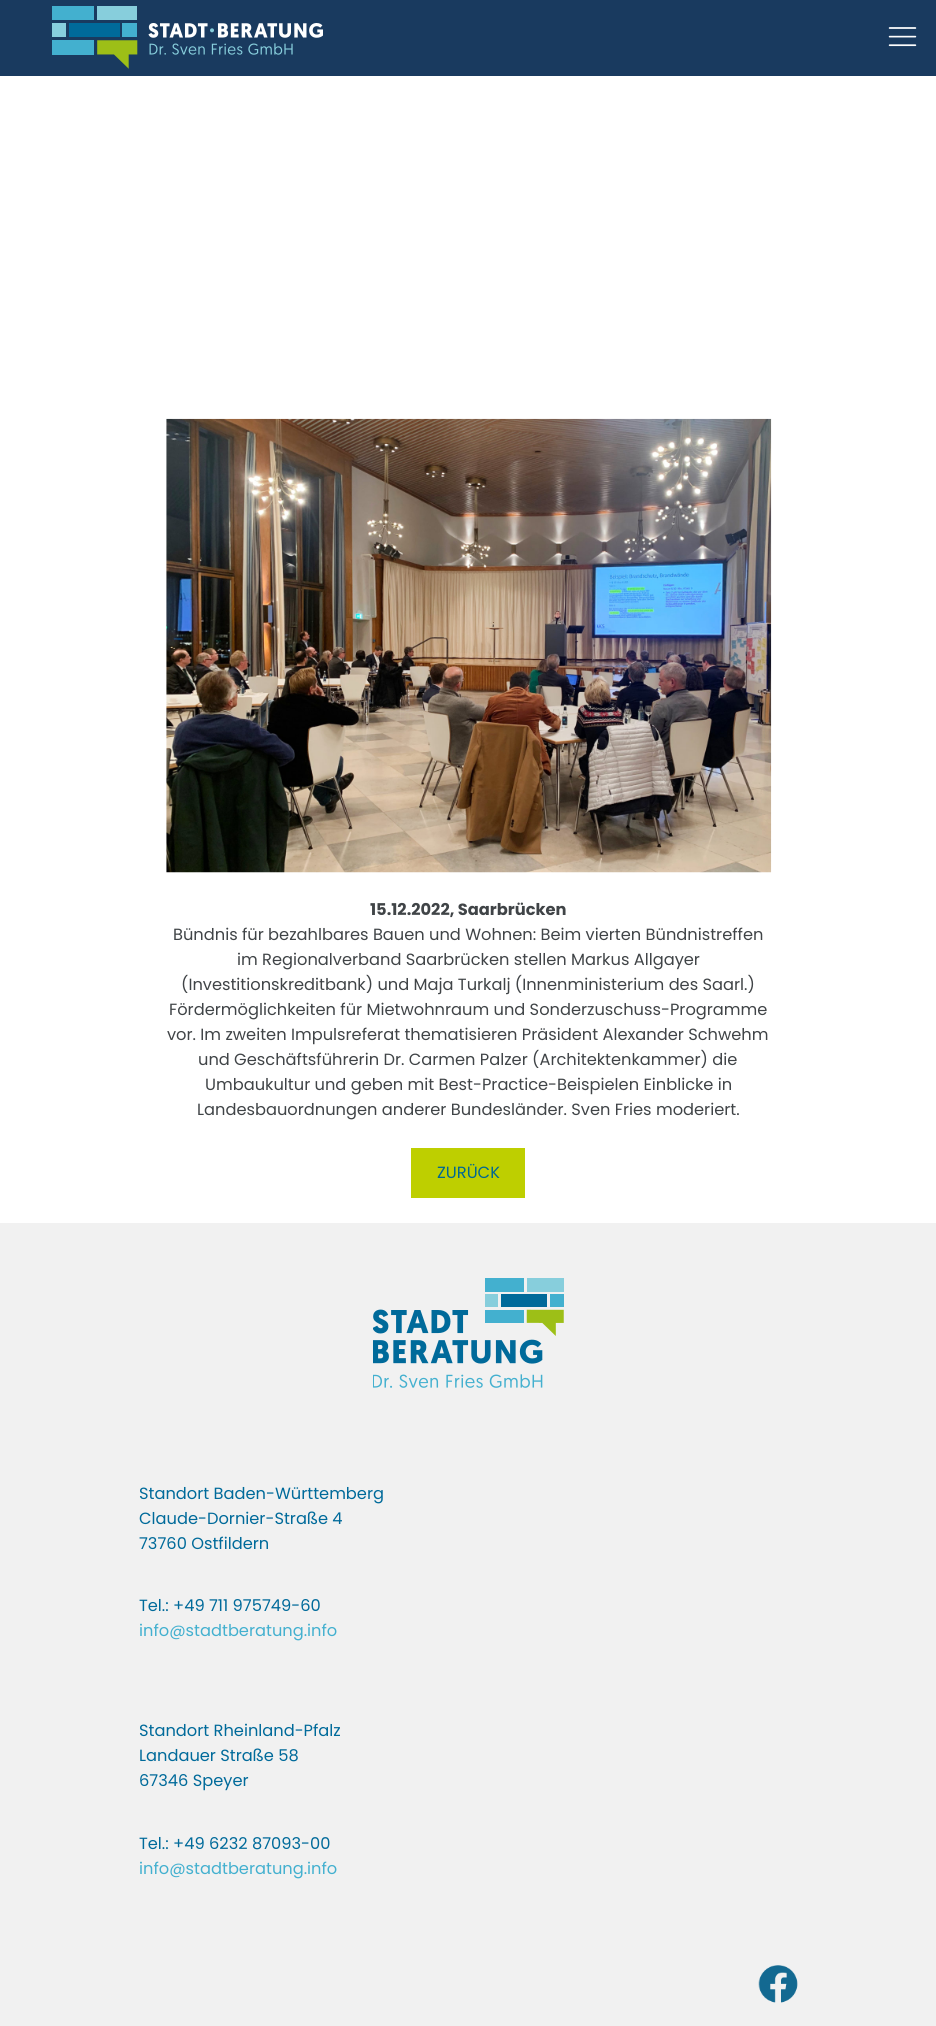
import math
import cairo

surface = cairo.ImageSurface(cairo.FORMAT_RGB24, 936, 2026)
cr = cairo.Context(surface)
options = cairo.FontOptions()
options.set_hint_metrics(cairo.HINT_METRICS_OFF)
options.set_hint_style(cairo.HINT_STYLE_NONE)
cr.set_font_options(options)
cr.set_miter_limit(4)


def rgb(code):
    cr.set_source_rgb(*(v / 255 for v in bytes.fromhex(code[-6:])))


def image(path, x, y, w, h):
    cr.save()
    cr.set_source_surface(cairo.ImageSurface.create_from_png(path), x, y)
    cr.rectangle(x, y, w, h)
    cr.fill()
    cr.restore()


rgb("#ffffff")
cr.paint()
rgb("#193a5f")
cr.rectangle(0, 0, 936, 76)
cr.fill()
image("img/1.png", 52, 6, 271, 63)
image("img/2.png", 888, 27, 29, 20)
image("img/3.png", 166, 418, 606, 455)
rgb("#becf00")
cr.rectangle(411, 1148, 114, 50)
cr.fill()
rgb("#f1f1f1")
cr.rectangle(0, 1223, 936, 803)
cr.fill()
image("img/4.png", 373, 1278, 191, 110)
image("img/5.png", 758, 1965, 40, 38)
cr.select_font_face("Poppins", cairo.FONT_SLANT_NORMAL, cairo.FONT_WEIGHT_BOLD)
cr.set_font_size(16.25)
rgb("#404447")
cr.move_to(370, 915)
cr.show_text("15.12.2022, Saarbrücken")
cr.select_font_face("Poppins")
for x, y, s in [
    (173, 940, "Bündnis für bezahlbares Bauen und Wohnen: Beim vierten Bündnistreffen"),
    (237, 965, "im Regionalverband Saarbrücken stellen Markus Allgayer"),
    (181, 990, "(Investitionskreditbank) und Maja Turkalj (Innenministerium des Saarl.)"),
    (169, 1015, "Fördermöglichkeiten für Mietwohnraum und Sonderzuschuss-Programme"),
    (167, 1040, "vor. Im zweiten Impulsreferat thematisieren Präsident Alexander Schwehm"),
    (198, 1065, "und Geschäftsführerin Dr. Carmen Palzer (Architektenkammer) die"),
    (205, 1090, "Umbaukultur und geben mit Best-Practice-Beispielen Einblicke in"),
    (197, 1115, "Landesbauordnungen anderer Bundesländer. Sven Fries moderiert."),
]:
    cr.move_to(x, y)
    cr.show_text(s)
rgb("#006891")
cr.move_to(437, 1178)
cr.show_text("ZURÜCK")
rgb("#006a9a")
for x, y, s in [
    (139, 1499, "Standort Baden-Württemberg"),
    (139, 1524, "Claude-Dornier-Straße 4"),
    (139, 1549, "73760 Ostfildern"),
    (139, 1611, "Tel.: +49 711 975749-60"),
]:
    cr.move_to(x, y)
    cr.show_text(s)
rgb("#43b0cf")
cr.move_to(139, 1636)
cr.show_text("info@stadtberatung.info")
rgb("#006a9a")
for x, y, s in [
    (139, 1736, "Standort Rheinland-Pfalz"),
    (139, 1761, "Landauer Straße 58"),
    (139, 1786, "67346 Speyer"),
    (139, 1849, "Tel.: +49 6232 87093-00"),
]:
    cr.move_to(x, y)
    cr.show_text(s)
rgb("#43b0cf")
cr.move_to(139, 1874)
cr.show_text("info@stadtberatung.info")
surface.write_to_png("page.png")
